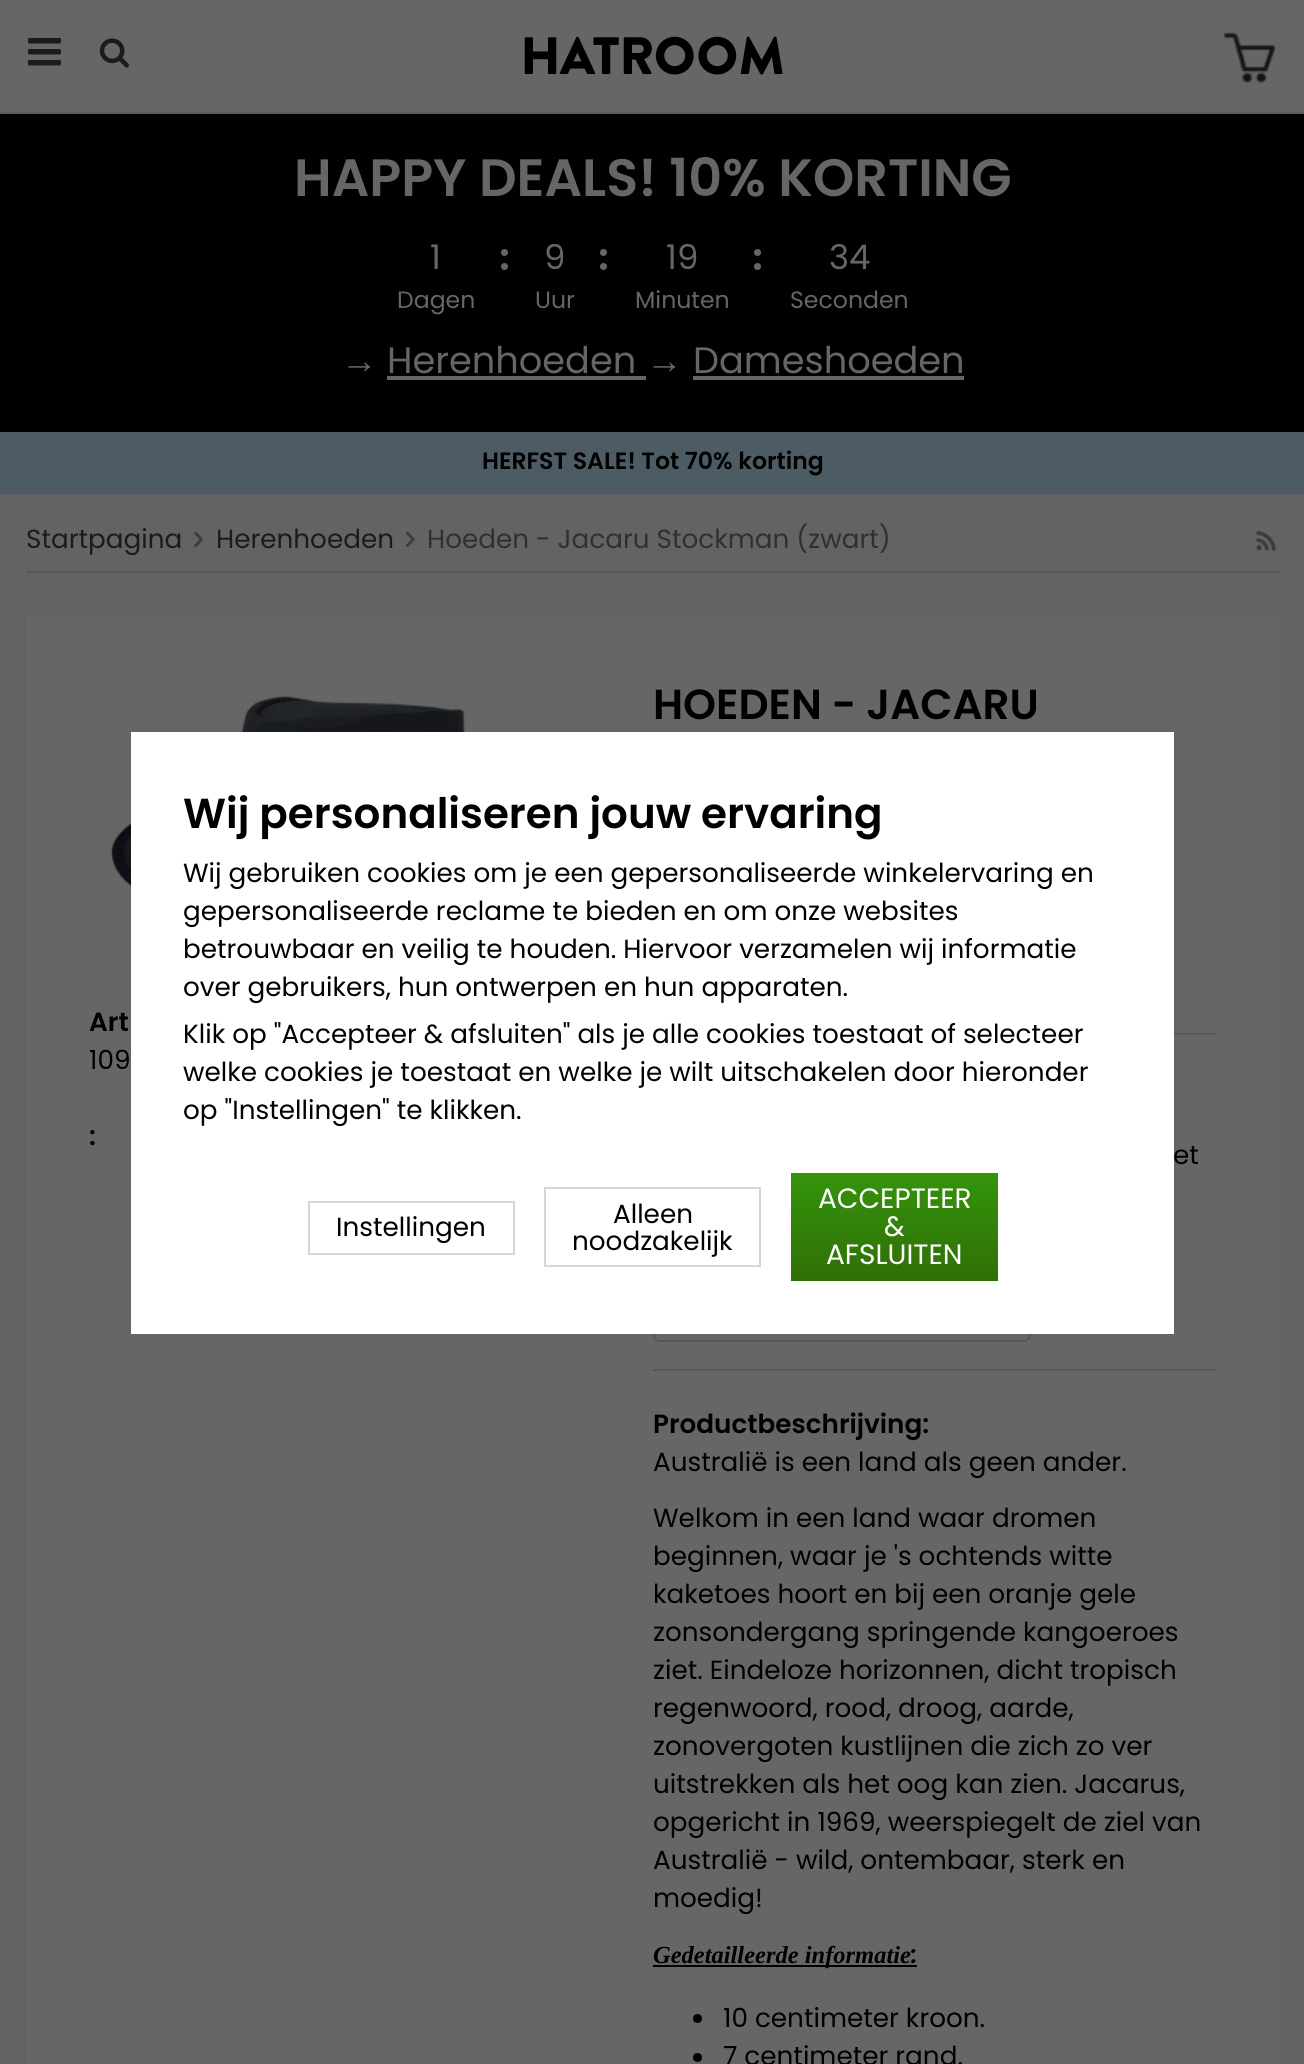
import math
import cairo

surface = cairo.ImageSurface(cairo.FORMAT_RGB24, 1304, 2064)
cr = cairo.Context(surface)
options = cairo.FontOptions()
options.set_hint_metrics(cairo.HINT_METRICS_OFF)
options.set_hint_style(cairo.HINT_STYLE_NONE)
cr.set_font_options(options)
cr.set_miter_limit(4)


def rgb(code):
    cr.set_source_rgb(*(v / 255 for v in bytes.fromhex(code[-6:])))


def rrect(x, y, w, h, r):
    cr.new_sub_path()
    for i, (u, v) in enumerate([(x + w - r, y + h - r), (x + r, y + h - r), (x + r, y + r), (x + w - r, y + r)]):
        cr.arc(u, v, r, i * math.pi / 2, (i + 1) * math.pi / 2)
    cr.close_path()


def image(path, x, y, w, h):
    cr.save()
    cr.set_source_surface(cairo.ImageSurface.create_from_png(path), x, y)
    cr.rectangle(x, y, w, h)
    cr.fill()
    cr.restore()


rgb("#636363")
cr.paint()
rgb("#666666")
cr.rectangle(0, 0, 1304, 112)
cr.fill()
rgb("#5d5d5d")
cr.rectangle(0, 112, 1304, 2)
cr.fill()
image("img/1.png", 28, 38, 33, 28)
image("img/2.png", 99, 38, 30, 30)
image("img/3.png", 524, 36, 259, 39)
image("img/4.png", 1223, 32, 53, 52)
rgb("#000000")
cr.rectangle(0, 114, 1304, 318)
cr.fill()
rgb("#666666")
cr.arc(504.5, 252.5, 3.5, 0, 2 * math.pi)
cr.fill()
cr.arc(504.5, 266.5, 3.5, 0, 2 * math.pi)
cr.fill()
cr.arc(603.5, 252.5, 3.5, 0, 2 * math.pi)
cr.fill()
cr.arc(603.5, 266.5, 3.5, 0, 2 * math.pi)
cr.fill()
cr.arc(757.5, 252.5, 3.5, 0, 2 * math.pi)
cr.fill()
cr.arc(757.5, 266.5, 3.5, 0, 2 * math.pi)
cr.fill()
for x, y, w, h, color in [
    (387, 376, 259, 4, "#666666"),
    (693, 376, 271, 4, "#666666"),
    (0, 432, 1304, 62, "#4d5c64"),
    (26, 571, 1253, 2, "#585858"),
]:
    rgb(color)
    cr.rectangle(x, y, w, h)
    cr.fill()
image("img/5.png", 194, 531, 9, 16)
image("img/6.png", 406, 531, 9, 16)
image("img/7.png", 1256, 531, 20, 20)
rgb("#666666")
cr.rectangle(26, 616, 1253, 1448)
cr.fill()
image("img/8.png", 109, 694, 478, 228)
rgb("#585858")
cr.rectangle(1174, 1033, 42, 2)
cr.fill()
cr.rectangle(653, 1369, 563, 2)
cr.fill()
rrect(654, 1293, 376, 48, 6)
rgb("#565656")
cr.stroke()
rgb("#000000")
cr.rectangle(653, 1965, 257, 2)
cr.fill()
cr.rectangle(910, 1965, 7, 2)
cr.fill()
cr.arc(697.5, 2018.5, 4.5, 0, 2 * math.pi)
cr.fill()
cr.arc(697.5, 2057.5, 4.5, 0, 2 * math.pi)
cr.fill()
rgb("#ffffff")
cr.rectangle(131, 732, 1043, 602)
cr.fill()
cr.rectangle(309, 1202, 205, 52)
rgb("#d7d7d7")
cr.stroke()
cr.rectangle(545, 1188, 215, 78)
cr.stroke()
gradient = cairo.LinearGradient(894, 1173, 894, 1281)
gradient.add_color_stop_rgba(0, 0.204, 0.58, 0.043, 1)
gradient.add_color_stop_rgba(1, 0.188, 0.435, 0.027, 1)
cr.set_source(gradient)
cr.rectangle(791, 1173, 207, 108)
cr.fill()
cr.select_font_face("Poppins SemiBold")
cr.set_font_size(52.5)
rgb("#666666")
cr.move_to(294, 196)
cr.show_text("HAPPY DEALS! 10% KORTING")
cr.select_font_face("Poppins")
cr.set_font_size(34)
cr.move_to(430, 269)
cr.show_text("1")
cr.set_font_size(23.6)
cr.move_to(397, 308)
cr.show_text("Dagen")
cr.set_font_size(34)
cr.move_to(544, 269)
cr.show_text("9")
cr.set_font_size(23.6)
cr.move_to(535, 308)
cr.show_text("Uur")
cr.set_font_size(34)
cr.move_to(666, 269)
cr.show_text("19")
cr.set_font_size(23.6)
cr.move_to(635, 308)
cr.show_text("Minuten")
cr.set_font_size(34)
cr.move_to(829, 269)
cr.show_text("34")
cr.set_font_size(23.6)
cr.move_to(790, 308)
cr.show_text("Seconden")
cr.select_font_face("Liberation Sans")
cr.set_font_size(36.75)
cr.move_to(341, 373)
cr.show_text("→")
cr.select_font_face("Poppins")
cr.move_to(387, 373)
cr.show_text("Herenhoeden")
cr.select_font_face("Liberation Sans")
cr.move_to(646, 373)
cr.show_text("→")
cr.select_font_face("Poppins")
cr.move_to(693, 373)
cr.show_text("Dameshoeden")
cr.select_font_face("Poppins SemiBold")
cr.set_font_size(23.6)
rgb("#000000")
cr.move_to(482, 469)
cr.show_text("HERFST SALE! Tot 70% korting")
cr.select_font_face("Poppins")
cr.set_font_size(26.25)
rgb("#1b1b1b")
cr.move_to(26, 548)
cr.show_text("Startpagina")
cr.move_to(216, 548)
cr.show_text("Herenhoeden")
rgb("#303030")
cr.move_to(427, 548)
cr.show_text("Hoeden - Jacaru Stockman (zwart)")
cr.select_font_face("Poppins SemiBold")
cr.set_font_size(42)
rgb("#000000")
cr.move_to(653, 719)
cr.show_text("HOEDEN - JACARU")
cr.select_font_face("Poppins")
cr.set_font_size(26.25)
cr.move_to(1173, 1164)
cr.show_text("et")
cr.select_font_face("Poppins SemiBold")
cr.move_to(653, 1433)
cr.show_text("Productbeschrijving:")
cr.select_font_face("Poppins")
for x, y, s in [
    (653, 1471, "Australië is een land als geen ander."),
    (653, 1527, "Welkom in een land waar dromen"),
    (653, 1565, "beginnen, waar je 's ochtends witte"),
    (653, 1603, "kaketoes hoort en bij een oranje gele"),
    (653, 1641, "zonsondergang springende kangoeroes"),
    (653, 1679, "ziet. Eindeloze horizonnen, dicht tropisch"),
    (653, 1717, "regenwoord, rood, droog, aarde,"),
    (653, 1755, "zonovergoten kustlijnen die zich zo ver"),
    (653, 1793, "uitstrekken als het oog kan zien. Jacarus,"),
    (653, 1831, "opgericht in 1969, weerspiegelt de ziel van"),
    (653, 1869, "Australië - wild, ontembaar, sterk en"),
    (653, 1907, "moedig!"),
]:
    cr.move_to(x, y)
    cr.show_text(s)
cr.select_font_face("Liberation Serif", cairo.FONT_SLANT_ITALIC, cairo.FONT_WEIGHT_BOLD)
cr.set_font_size(24.5)
cr.move_to(653, 1963)
cr.show_text("Gedetailleerde informatie")
cr.select_font_face("Poppins SemiBold", cairo.FONT_SLANT_ITALIC)
cr.move_to(911, 1963)
cr.show_text(":")
cr.select_font_face("Poppins")
cr.set_font_size(26.25)
cr.move_to(723, 2027)
cr.show_text("10 centimeter kroon.")
cr.move_to(723, 2065)
cr.show_text("7 centimeter rand.")
cr.select_font_face("Poppins SemiBold")
cr.move_to(89, 1031)
cr.show_text("Art")
cr.select_font_face("Poppins")
cr.move_to(89, 1069)
cr.show_text("109")
cr.select_font_face("Poppins SemiBold")
cr.move_to(89, 1145)
cr.show_text(":")
cr.set_font_size(42)
cr.move_to(183, 828)
cr.show_text("Wij personaliseren jouw ervaring")
cr.select_font_face("Poppins")
cr.set_font_size(26.25)
for x, y, s in [
    (183, 882, "Wij gebruiken cookies om je een gepersonaliseerde winkelervaring en"),
    (183, 920, "gepersonaliseerde reclame te bieden en om onze websites"),
    (183, 958, "betrouwbaar en veilig te houden. Hiervoor verzamelen wij informatie"),
    (183, 996, "over gebruikers, hun ontwerpen en hun apparaten."),
    (183, 1043, "Klik op \"Accepteer & afsluiten\" als je alle cookies toestaat of selecteer"),
    (183, 1081, "welke cookies je toestaat en welke je wilt uitschakelen door hieronder"),
    (183, 1119, "op \"Instellingen\" te klikken."),
    (336, 1236, "Instellingen"),
    (613, 1223, "Alleen"),
    (572, 1250, "noodzakelijk"),
]:
    cr.move_to(x, y)
    cr.show_text(s)
cr.set_font_size(28)
rgb("#ffffff")
for x, y, s in [
    (818, 1208, "ACCEPTEER"),
    (884, 1236, "&"),
    (826, 1264, "AFSLUITEN"),
]:
    cr.move_to(x, y)
    cr.show_text(s)
surface.write_to_png("page.png")
